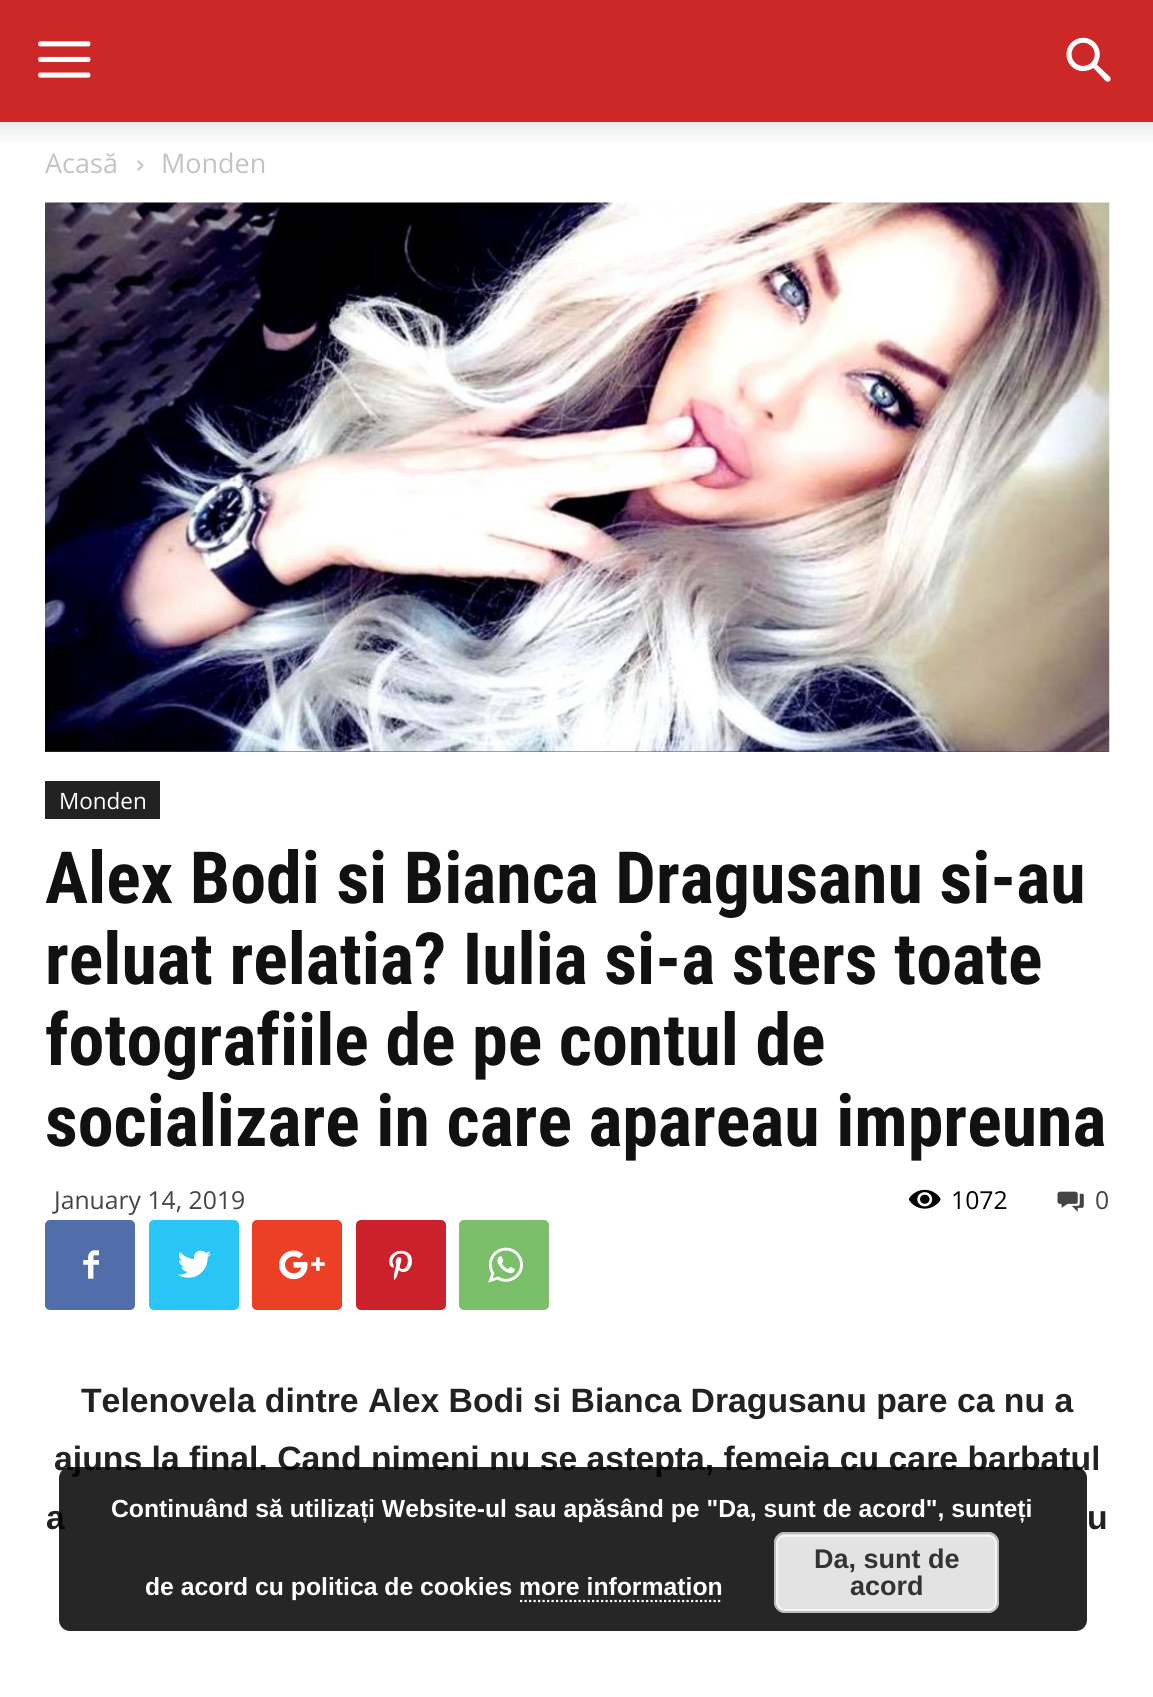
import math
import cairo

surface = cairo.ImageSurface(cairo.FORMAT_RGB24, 1153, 1697)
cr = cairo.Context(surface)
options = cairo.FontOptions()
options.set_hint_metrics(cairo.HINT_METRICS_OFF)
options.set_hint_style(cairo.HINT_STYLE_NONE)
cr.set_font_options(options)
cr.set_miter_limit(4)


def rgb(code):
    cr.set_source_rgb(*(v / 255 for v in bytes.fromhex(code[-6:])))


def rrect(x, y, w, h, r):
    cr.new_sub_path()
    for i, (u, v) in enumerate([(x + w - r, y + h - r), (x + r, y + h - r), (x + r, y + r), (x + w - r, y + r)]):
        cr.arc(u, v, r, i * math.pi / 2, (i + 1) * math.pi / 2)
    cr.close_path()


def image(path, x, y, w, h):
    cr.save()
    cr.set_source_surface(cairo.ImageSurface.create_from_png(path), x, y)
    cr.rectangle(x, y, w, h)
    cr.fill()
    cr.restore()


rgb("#ffffff")
cr.paint()
rgb("#cc2828")
cr.rectangle(0, 0, 1153, 122)
cr.fill()
image("img/1.png", 38, 41, 53, 37)
image("img/2.png", 1066, 37, 45, 45)
image("img/3.png", 0, 122, 1153, 19)
image("img/4.png", 137, 160, 7, 11)
rgb("#444444")
cr.rectangle(45, 751, 1064, 1)
cr.fill()
image("img/5.png", 45, 202, 1065, 550)
rgb("#222222")
cr.rectangle(45, 781, 115, 38)
cr.fill()
image("img/6.png", 909, 1189, 32, 20)
image("img/7.png", 1057, 1191, 27, 21)
rgb("#516eab")
rrect(45, 1220, 90, 90, 5)
cr.fill()
image("img/8.png", 83, 1250, 16, 29)
rgb("#29c5f6")
rrect(149, 1220, 90, 90, 5)
cr.fill()
image("img/9.png", 178, 1250, 33, 28)
rgb("#eb4026")
rrect(252, 1220, 90, 90, 5)
cr.fill()
image("img/10.png", 279, 1250, 46, 30)
rgb("#ca212a")
rrect(356, 1220, 90, 90, 5)
cr.fill()
image("img/11.png", 389, 1250, 23, 30)
rgb("#7bbf6a")
rrect(459, 1220, 90, 90, 5)
cr.fill()
image("img/12.png", 488, 1247, 35, 36)
cr.select_font_face("Open Sans")
cr.set_font_size(27)
rgb("#c3c3c3")
cr.move_to(45, 173)
cr.show_text("Acasă")
cr.move_to(161, 173)
cr.show_text("Monden")
cr.set_font_size(22.5)
rgb("#ffffff")
cr.move_to(59, 809)
cr.show_text("Monden")
cr.select_font_face("Roboto Condensed", cairo.FONT_SLANT_NORMAL, cairo.FONT_WEIGHT_BOLD)
cr.set_font_size(72)
rgb("#111111")
for x, y, s in [
    (45, 903, "Alex Bodi si Bianca Dragusanu si-au"),
    (45, 984, "reluat relatia? Iulia si-a sters toate"),
    (45, 1065, "fotografiile de pe contul de"),
    (45, 1146, "socializare in care apareau impreuna"),
]:
    cr.move_to(x, y)
    cr.show_text(s)
cr.select_font_face("Open Sans")
cr.set_font_size(24.75)
rgb("#444444")
cr.move_to(54, 1209)
cr.show_text("January 14, 2019")
rgb("#000000")
cr.move_to(951, 1209)
cr.show_text("1072")
rgb("#444444")
cr.move_to(1095, 1209)
cr.show_text("0")
cr.select_font_face("Liberation Sans", cairo.FONT_SLANT_NORMAL, cairo.FONT_WEIGHT_BOLD)
cr.set_font_size(33.75)
rgb("#222222")
for x, y, s in [
    (81, 1412, "Telenovela dintre Alex Bodi si Bianca Dragusanu pare ca nu a"),
    (54, 1470, "ajuns la final. Cand nimeni nu se astepta, femeia cu care barbatul"),
    (46, 1529, "a"),
    (1087, 1529, "u"),
]:
    cr.move_to(x, y)
    cr.show_text(s)
cr.set_source_rgba(0, 0, 0, 0.85)
rrect(59, 1467, 1028, 164, 11)
cr.fill()
cr.set_font_size(24.75)
rgb("#ffffff")
cr.move_to(111, 1517)
cr.show_text("Continuând să utilizați Website-ul sau apăsând pe \"Da, sunt de acord\", sunteți")
cr.move_to(145, 1595)
cr.show_text("de acord cu politica de cookies more information")
rgb("#e3e3e3")
rrect(774, 1532, 225, 81, 11)
cr.fill()
rrect(777, 1536, 219, 74, 8)
rgb("#f6f6f6")
cr.stroke()
rrect(775, 1533, 223, 79, 10)
rgb("#bbbbbb")
cr.stroke()
cr.set_font_size(27)
rgb("#333333")
cr.move_to(814, 1568)
cr.show_text("Da, sunt de")
cr.move_to(850, 1595)
cr.show_text("acord")
cr.new_path()
cr.move_to(520, 1601)
cr.line_to(722, 1601)
rgb("#ffffff")
cr.set_line_width(2.2)
cr.set_dash([2.25, 2.25])
cr.stroke()
surface.write_to_png("page.png")
